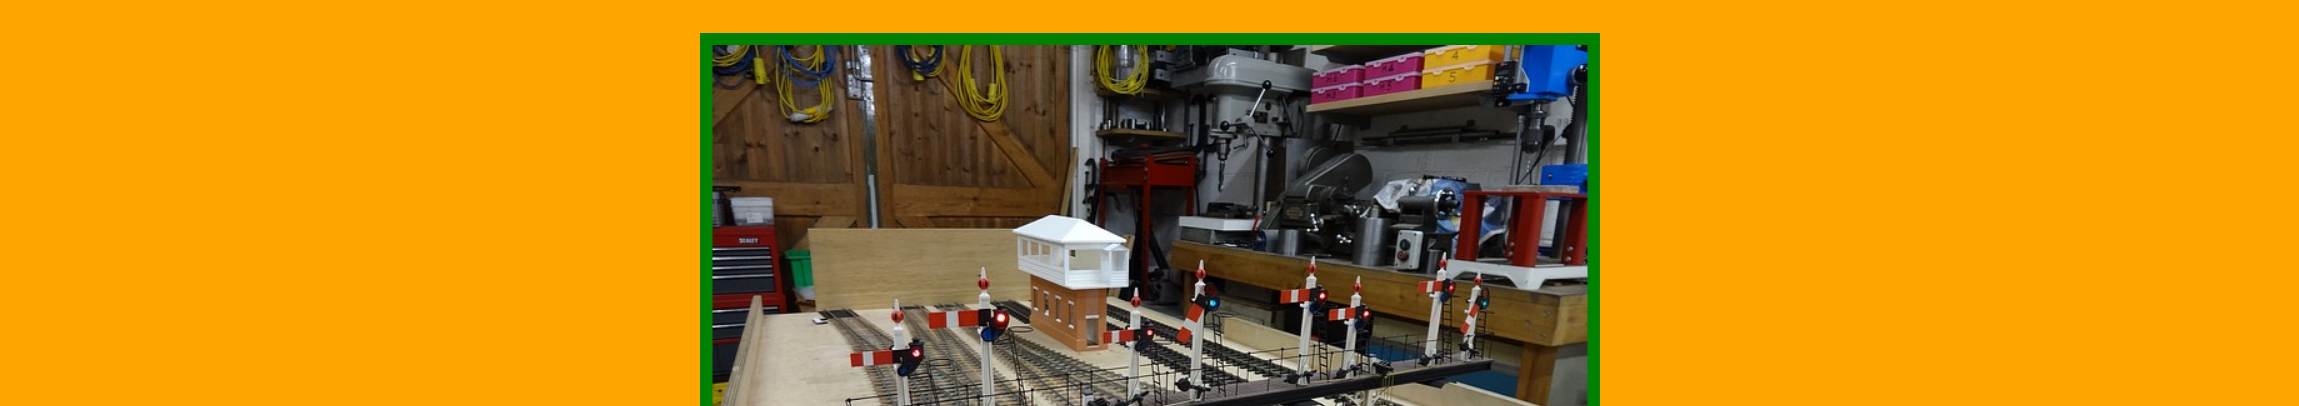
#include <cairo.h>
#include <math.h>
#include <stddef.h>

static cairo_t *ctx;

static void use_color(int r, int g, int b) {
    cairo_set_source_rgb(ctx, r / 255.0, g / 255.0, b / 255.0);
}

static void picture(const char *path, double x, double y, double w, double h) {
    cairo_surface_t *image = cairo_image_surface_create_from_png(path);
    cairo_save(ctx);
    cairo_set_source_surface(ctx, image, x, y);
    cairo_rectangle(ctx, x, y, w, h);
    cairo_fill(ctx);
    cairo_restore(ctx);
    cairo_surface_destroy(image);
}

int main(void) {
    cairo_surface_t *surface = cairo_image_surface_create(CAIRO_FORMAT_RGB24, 2299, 406);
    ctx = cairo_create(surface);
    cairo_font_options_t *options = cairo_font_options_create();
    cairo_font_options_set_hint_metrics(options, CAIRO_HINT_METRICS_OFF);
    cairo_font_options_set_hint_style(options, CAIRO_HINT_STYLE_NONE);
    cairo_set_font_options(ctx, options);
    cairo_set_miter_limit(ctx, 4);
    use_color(255, 165, 0);
    cairo_paint(ctx);
    cairo_rectangle(ctx, 706.5, 39.5, 887, 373);
    use_color(0, 128, 0);
    cairo_set_line_width(ctx, 13);
    cairo_stroke(ctx);
    picture("img1.png", 712, 45, 876, 361);
    cairo_surface_write_to_png(surface, "result.png");
    cairo_font_options_destroy(options);
    cairo_destroy(ctx);
    cairo_surface_destroy(surface);
    return 0;
}
